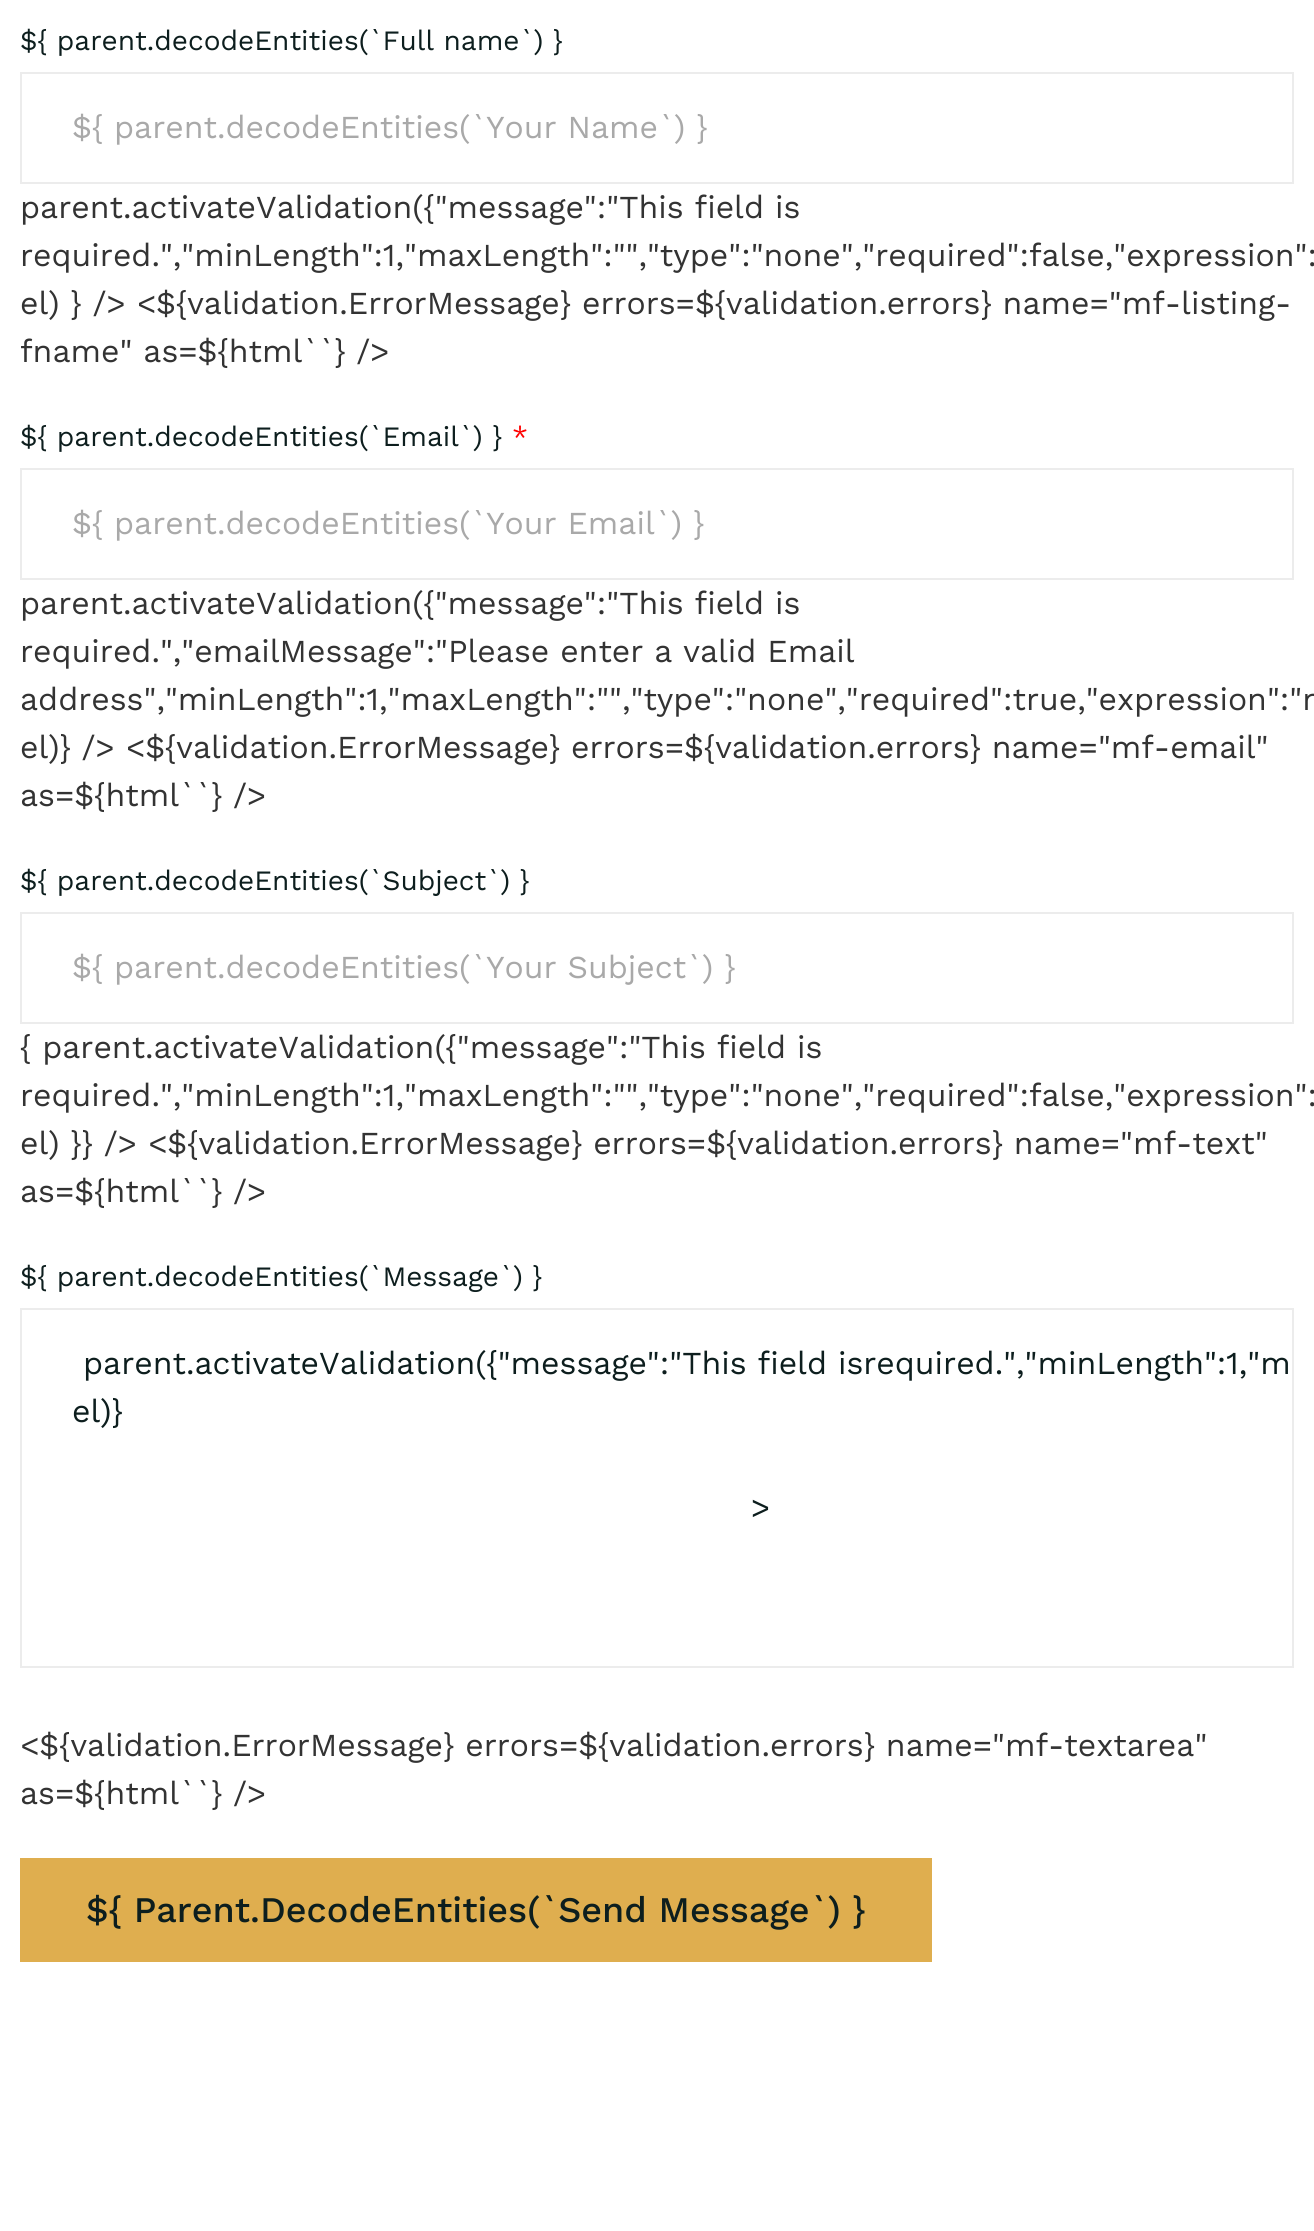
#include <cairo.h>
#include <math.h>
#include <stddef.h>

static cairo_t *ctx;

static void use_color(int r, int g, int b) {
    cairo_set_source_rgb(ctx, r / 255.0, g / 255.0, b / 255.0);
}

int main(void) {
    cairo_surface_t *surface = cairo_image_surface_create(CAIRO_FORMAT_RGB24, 1314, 2231);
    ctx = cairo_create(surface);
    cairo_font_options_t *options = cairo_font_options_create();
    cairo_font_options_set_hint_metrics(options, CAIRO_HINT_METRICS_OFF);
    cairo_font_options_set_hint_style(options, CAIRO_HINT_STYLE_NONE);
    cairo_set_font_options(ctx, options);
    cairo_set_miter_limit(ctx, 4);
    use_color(255, 255, 255);
    cairo_paint(ctx);
    cairo_select_font_face(ctx, "Work Sans", CAIRO_FONT_SLANT_NORMAL, CAIRO_FONT_WEIGHT_NORMAL);
    cairo_set_font_size(ctx, 28);
    use_color(13, 30, 30);
    cairo_move_to(ctx, 20, 50);
    cairo_show_text(ctx, "${ parent.decodeEntities(`Full name`) }");
    cairo_rectangle(ctx, 21, 73, 1272, 110);
    use_color(236, 236, 236);
    cairo_stroke(ctx);
    cairo_set_font_size(ctx, 32);
    use_color(169, 169, 169);
    cairo_move_to(ctx, 72, 138);
    cairo_show_text(ctx, "${ parent.decodeEntities(`Your Name`) }");
    use_color(51, 51, 51);
    cairo_move_to(ctx, 20, 218);
    cairo_show_text(ctx, "parent.activateValidation({\"message\":\"This field is");
    cairo_move_to(ctx, 20, 266);
    cairo_show_text(ctx, "required.\",\"minLength\":1,\"maxLength\":\"\",\"type\":\"none\",\"required\":false,\"expression\":");
    cairo_move_to(ctx, 20, 314);
    cairo_show_text(ctx, "el) } /> <${validation.ErrorMessage} errors=${validation.errors} name=\"mf-listing-");
    cairo_move_to(ctx, 20, 362);
    cairo_show_text(ctx, "fname\" as=${html``} />");
    cairo_set_font_size(ctx, 28);
    use_color(13, 30, 30);
    cairo_move_to(ctx, 20, 446);
    cairo_show_text(ctx, "${ parent.decodeEntities(`Email`) }");
    use_color(255, 0, 0);
    cairo_move_to(ctx, 512, 446);
    cairo_show_text(ctx, "*");
    cairo_rectangle(ctx, 21, 469, 1272, 110);
    use_color(236, 236, 236);
    cairo_stroke(ctx);
    cairo_set_font_size(ctx, 32);
    use_color(169, 169, 169);
    cairo_move_to(ctx, 72, 534);
    cairo_show_text(ctx, "${ parent.decodeEntities(`Your Email`) }");
    use_color(51, 51, 51);
    cairo_move_to(ctx, 20, 614);
    cairo_show_text(ctx, "parent.activateValidation({\"message\":\"This field is");
    cairo_move_to(ctx, 20, 662);
    cairo_show_text(ctx, "required.\",\"emailMessage\":\"Please enter a valid Email");
    cairo_move_to(ctx, 20, 710);
    cairo_show_text(ctx, "address\",\"minLength\":1,\"maxLength\":\"\",\"type\":\"none\",\"required\":true,\"expression\":\"n");
    cairo_move_to(ctx, 20, 758);
    cairo_show_text(ctx, "el)} /> <${validation.ErrorMessage} errors=${validation.errors} name=\"mf-email\"");
    cairo_move_to(ctx, 20, 806);
    cairo_show_text(ctx, "as=${html``} />");
    cairo_set_font_size(ctx, 28);
    use_color(13, 30, 30);
    cairo_move_to(ctx, 20, 890);
    cairo_show_text(ctx, "${ parent.decodeEntities(`Subject`) }");
    cairo_rectangle(ctx, 21, 913, 1272, 110);
    use_color(236, 236, 236);
    cairo_stroke(ctx);
    cairo_set_font_size(ctx, 32);
    use_color(169, 169, 169);
    cairo_move_to(ctx, 72, 978);
    cairo_show_text(ctx, "${ parent.decodeEntities(`Your Subject`) }");
    use_color(51, 51, 51);
    cairo_move_to(ctx, 20, 1058);
    cairo_show_text(ctx, "{ parent.activateValidation({\"message\":\"This field is");
    cairo_move_to(ctx, 20, 1106);
    cairo_show_text(ctx, "required.\",\"minLength\":1,\"maxLength\":\"\",\"type\":\"none\",\"required\":false,\"expression\":");
    cairo_move_to(ctx, 20, 1154);
    cairo_show_text(ctx, "el) }} /> <${validation.ErrorMessage} errors=${validation.errors} name=\"mf-text\"");
    cairo_move_to(ctx, 20, 1202);
    cairo_show_text(ctx, "as=${html``} />");
    cairo_set_font_size(ctx, 28);
    use_color(13, 30, 30);
    cairo_move_to(ctx, 20, 1286);
    cairo_show_text(ctx, "${ parent.decodeEntities(`Message`) }");
    cairo_rectangle(ctx, 21, 1309, 1272, 358);
    use_color(236, 236, 236);
    cairo_stroke(ctx);
    cairo_set_font_size(ctx, 32);
    use_color(13, 30, 30);
    cairo_move_to(ctx, 83, 1374);
    cairo_show_text(ctx, "parent.activateValidation({\"message\":\"This field isrequired.\",\"minLength\":1,\"m");
    cairo_move_to(ctx, 72, 1422);
    cairo_show_text(ctx, "el)}");
    cairo_move_to(ctx, 751, 1518);
    cairo_show_text(ctx, ">");
    use_color(51, 51, 51);
    cairo_move_to(ctx, 20, 1756);
    cairo_show_text(ctx, "<${validation.ErrorMessage} errors=${validation.errors} name=\"mf-textarea\"");
    cairo_move_to(ctx, 20, 1804);
    cairo_show_text(ctx, "as=${html``} />");
    use_color(223, 174, 79);
    cairo_rectangle(ctx, 20, 1858, 912, 104);
    cairo_fill(ctx);
    cairo_select_font_face(ctx, "Work Sans Medium", CAIRO_FONT_SLANT_NORMAL, CAIRO_FONT_WEIGHT_NORMAL);
    cairo_set_font_size(ctx, 36);
    use_color(13, 30, 30);
    cairo_move_to(ctx, 86, 1922);
    cairo_show_text(ctx, "${ Parent.DecodeEntities(`Send Message`) }");
    cairo_surface_write_to_png(surface, "result.png");
    cairo_font_options_destroy(options);
    cairo_destroy(ctx);
    cairo_surface_destroy(surface);
    return 0;
}
